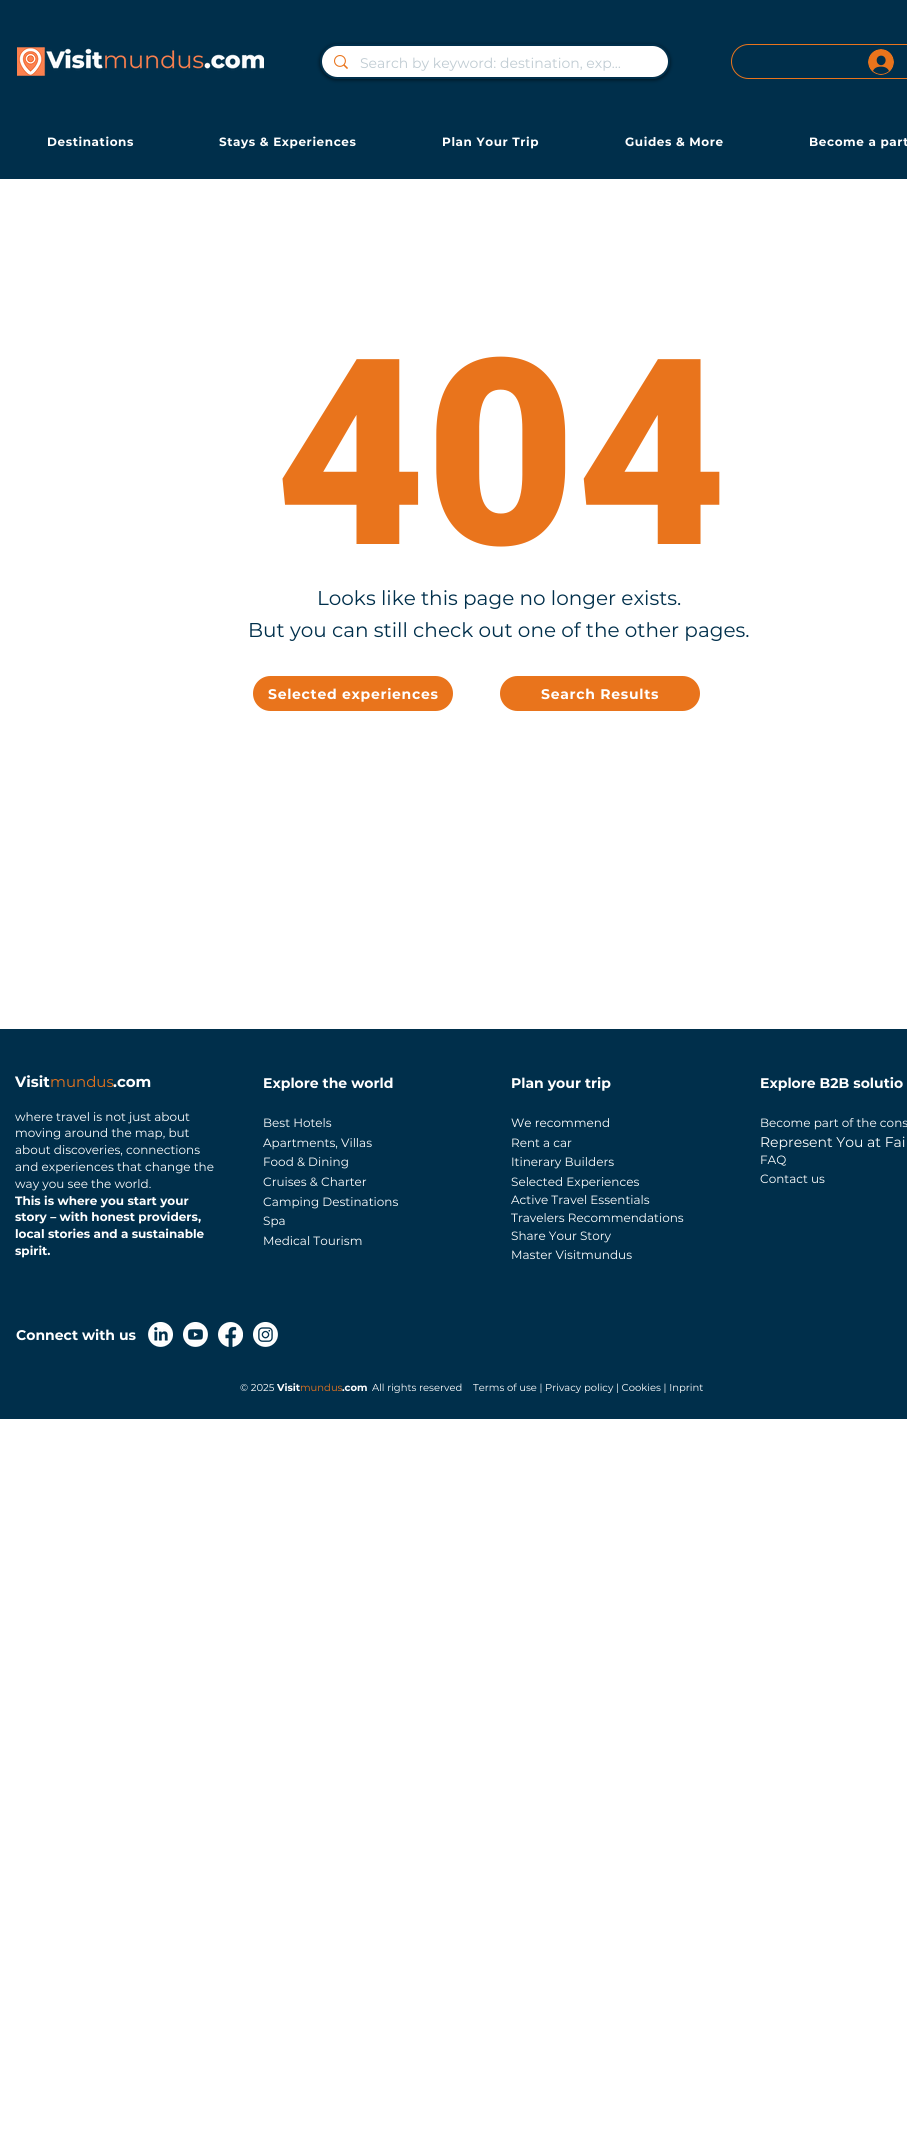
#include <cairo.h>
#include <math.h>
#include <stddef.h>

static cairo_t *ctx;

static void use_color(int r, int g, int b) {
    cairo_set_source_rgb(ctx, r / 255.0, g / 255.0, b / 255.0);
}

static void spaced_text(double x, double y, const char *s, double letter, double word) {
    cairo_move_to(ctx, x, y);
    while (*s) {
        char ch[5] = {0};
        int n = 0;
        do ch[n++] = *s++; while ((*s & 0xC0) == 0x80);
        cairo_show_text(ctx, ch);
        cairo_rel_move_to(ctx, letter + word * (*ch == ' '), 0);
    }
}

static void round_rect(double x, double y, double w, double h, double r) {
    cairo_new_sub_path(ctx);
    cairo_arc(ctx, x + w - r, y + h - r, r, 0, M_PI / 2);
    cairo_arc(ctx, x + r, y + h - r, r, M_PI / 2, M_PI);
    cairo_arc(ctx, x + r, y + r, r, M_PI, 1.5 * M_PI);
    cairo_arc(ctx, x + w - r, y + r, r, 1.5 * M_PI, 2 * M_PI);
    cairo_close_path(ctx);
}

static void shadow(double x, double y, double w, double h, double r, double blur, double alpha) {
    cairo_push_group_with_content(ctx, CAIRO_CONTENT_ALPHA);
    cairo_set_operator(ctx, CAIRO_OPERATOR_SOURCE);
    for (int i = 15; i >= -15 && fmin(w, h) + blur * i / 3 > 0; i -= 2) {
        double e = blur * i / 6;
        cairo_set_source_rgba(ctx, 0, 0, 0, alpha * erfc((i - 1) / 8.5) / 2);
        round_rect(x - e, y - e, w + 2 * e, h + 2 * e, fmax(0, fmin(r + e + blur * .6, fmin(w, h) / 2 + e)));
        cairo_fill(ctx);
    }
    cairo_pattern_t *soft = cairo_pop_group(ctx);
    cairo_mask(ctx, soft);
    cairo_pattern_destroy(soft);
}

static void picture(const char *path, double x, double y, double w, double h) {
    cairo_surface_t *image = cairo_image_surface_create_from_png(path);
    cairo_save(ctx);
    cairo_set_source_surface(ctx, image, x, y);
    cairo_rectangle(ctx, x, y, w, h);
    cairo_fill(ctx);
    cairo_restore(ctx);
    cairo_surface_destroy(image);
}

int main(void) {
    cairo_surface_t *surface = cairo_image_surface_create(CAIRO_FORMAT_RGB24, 907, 2135);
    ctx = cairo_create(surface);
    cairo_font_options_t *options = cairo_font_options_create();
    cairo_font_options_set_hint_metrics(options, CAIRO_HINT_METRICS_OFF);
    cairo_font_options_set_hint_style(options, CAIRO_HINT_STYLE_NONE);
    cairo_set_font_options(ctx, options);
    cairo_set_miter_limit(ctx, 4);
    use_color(255, 255, 255);
    cairo_paint(ctx);
    use_color(0, 47, 75);
    cairo_rectangle(ctx, 0, 0, 907, 179);
    cairo_fill(ctx);
    picture("img1.png", 17, 47, 247, 29);
    use_color(0, 0, 0);
    shadow(320, 45, 350, 35, 17.5, 2, 0.6);
    round_rect(321, 45, 348, 33, 16.5);
    use_color(0, 47, 75);
    cairo_stroke(ctx);
    use_color(255, 255, 255);
    round_rect(322, 46, 346, 31, 15.5);
    cairo_fill(ctx);
    picture("img2.png", 334, 55, 14, 14);
    cairo_select_font_face(ctx, "Montserrat", CAIRO_FONT_SLANT_NORMAL, CAIRO_FONT_WEIGHT_NORMAL);
    cairo_set_font_size(ctx, 14);
    use_color(191, 203, 210);
    cairo_move_to(ctx, 360, 68);
    cairo_show_text(ctx, "Search by keyword: destination, exp…");
    round_rect(731.5, 44.5, 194, 34, 17);
    use_color(233, 116, 28);
    cairo_set_line_width(ctx, 1);
    cairo_stroke(ctx);
    picture("img3.png", 868, 49, 26, 26);
    cairo_select_font_face(ctx, "Montserrat", CAIRO_FONT_SLANT_NORMAL, CAIRO_FONT_WEIGHT_BOLD);
    cairo_set_font_size(ctx, 12);
    use_color(255, 255, 255);
    spaced_text(47, 146, "Destinations", 0.6, 0);
    spaced_text(219, 146, "Stays & Experiences", 0.6, 0);
    spaced_text(442, 146, "Plan Your Trip", 0.6, 0);
    spaced_text(625, 146, "Guides & More", 0.6, 0);
    spaced_text(809, 146, "Become a part", 0.6, 0);
    cairo_select_font_face(ctx, "Roboto Black", CAIRO_FONT_SLANT_NORMAL, CAIRO_FONT_WEIGHT_NORMAL);
    cairo_set_font_size(ctx, 260);
    use_color(233, 116, 28);
    cairo_move_to(ctx, 275, 544);
    cairo_show_text(ctx, "404");
    cairo_select_font_face(ctx, "Montserrat", CAIRO_FONT_SLANT_NORMAL, CAIRO_FONT_WEIGHT_NORMAL);
    cairo_set_font_size(ctx, 20);
    use_color(0, 47, 75);
    cairo_move_to(ctx, 317, 605);
    cairo_show_text(ctx, "Looks like this page no longer exists.");
    cairo_move_to(ctx, 248, 637);
    cairo_show_text(ctx, "But you can still check out one of the other pages.");
    use_color(233, 116, 28);
    round_rect(253, 676, 200, 35, 17.5);
    cairo_fill(ctx);
    cairo_select_font_face(ctx, "Montserrat", CAIRO_FONT_SLANT_NORMAL, CAIRO_FONT_WEIGHT_BOLD);
    cairo_set_font_size(ctx, 14);
    use_color(255, 255, 255);
    spaced_text(268, 699, "Selected experiences", 0.7, 0);
    use_color(233, 116, 28);
    round_rect(500, 676, 200, 35, 17.5);
    cairo_fill(ctx);
    use_color(255, 255, 255);
    spaced_text(541, 699, "Search Results", 0.7, 0);
    use_color(0, 47, 75);
    cairo_rectangle(ctx, 0, 1029, 907, 390);
    cairo_fill(ctx);
    cairo_set_font_size(ctx, 15);
    use_color(255, 255, 255);
    cairo_move_to(ctx, 15, 1087);
    cairo_show_text(ctx, "Visit");
    cairo_select_font_face(ctx, "Montserrat", CAIRO_FONT_SLANT_NORMAL, CAIRO_FONT_WEIGHT_NORMAL);
    use_color(233, 116, 28);
    cairo_move_to(ctx, 50, 1087);
    cairo_show_text(ctx, "mundus");
    cairo_select_font_face(ctx, "Montserrat", CAIRO_FONT_SLANT_NORMAL, CAIRO_FONT_WEIGHT_BOLD);
    use_color(255, 255, 255);
    cairo_move_to(ctx, 113, 1087);
    cairo_show_text(ctx, ".com");
    cairo_select_font_face(ctx, "Montserrat", CAIRO_FONT_SLANT_NORMAL, CAIRO_FONT_WEIGHT_NORMAL);
    cairo_set_font_size(ctx, 12);
    cairo_move_to(ctx, 15, 1121);
    cairo_show_text(ctx, "where travel is not just about");
    cairo_move_to(ctx, 15, 1137);
    cairo_show_text(ctx, "moving around the map, but");
    cairo_move_to(ctx, 15, 1154);
    cairo_show_text(ctx, "about discoveries, connections");
    cairo_move_to(ctx, 15, 1171);
    cairo_show_text(ctx, "and experiences that change the");
    cairo_move_to(ctx, 15, 1188);
    cairo_show_text(ctx, "way you see the world.");
    cairo_select_font_face(ctx, "Montserrat", CAIRO_FONT_SLANT_NORMAL, CAIRO_FONT_WEIGHT_BOLD);
    cairo_move_to(ctx, 15, 1205);
    cairo_show_text(ctx, "This is where you start your");
    cairo_move_to(ctx, 15, 1221);
    cairo_show_text(ctx, "story – with honest providers,");
    cairo_move_to(ctx, 15, 1238);
    cairo_show_text(ctx, "local stories and a sustainable");
    cairo_move_to(ctx, 15, 1255);
    cairo_show_text(ctx, "spirit.");
    cairo_set_font_size(ctx, 14);
    cairo_move_to(ctx, 263, 1088);
    cairo_show_text(ctx, "Explore the world");
    cairo_select_font_face(ctx, "Montserrat", CAIRO_FONT_SLANT_NORMAL, CAIRO_FONT_WEIGHT_NORMAL);
    cairo_set_font_size(ctx, 12);
    cairo_move_to(ctx, 263, 1127);
    cairo_show_text(ctx, "Best Hotels");
    cairo_move_to(ctx, 263, 1147);
    cairo_show_text(ctx, "Apartments, Villas");
    cairo_move_to(ctx, 263, 1166);
    cairo_show_text(ctx, "Food & Dining");
    cairo_move_to(ctx, 263, 1186);
    cairo_show_text(ctx, "Cruises & Charter");
    cairo_move_to(ctx, 263, 1206);
    cairo_show_text(ctx, "Camping Destinations");
    cairo_move_to(ctx, 263, 1225);
    cairo_show_text(ctx, "Spa");
    cairo_move_to(ctx, 263, 1245);
    cairo_show_text(ctx, "Medical Tourism");
    cairo_select_font_face(ctx, "Montserrat", CAIRO_FONT_SLANT_NORMAL, CAIRO_FONT_WEIGHT_BOLD);
    cairo_set_font_size(ctx, 14);
    cairo_move_to(ctx, 511, 1088);
    cairo_show_text(ctx, "Plan your trip");
    cairo_select_font_face(ctx, "Montserrat", CAIRO_FONT_SLANT_NORMAL, CAIRO_FONT_WEIGHT_NORMAL);
    cairo_set_font_size(ctx, 12);
    cairo_move_to(ctx, 511, 1127);
    cairo_show_text(ctx, "We recommend");
    cairo_move_to(ctx, 511, 1147);
    cairo_show_text(ctx, "Rent a car");
    cairo_move_to(ctx, 511, 1166);
    cairo_show_text(ctx, "Itinerary Builders");
    cairo_move_to(ctx, 511, 1186);
    cairo_show_text(ctx, "Selected Experiences");
    cairo_move_to(ctx, 511, 1204);
    cairo_show_text(ctx, "Active Travel Essentials");
    cairo_move_to(ctx, 511, 1222);
    cairo_show_text(ctx, "Travelers Recommendations");
    cairo_move_to(ctx, 511, 1240);
    cairo_show_text(ctx, "Share Your Story");
    cairo_move_to(ctx, 511, 1259);
    cairo_show_text(ctx, "Master Visitmundus");
    cairo_select_font_face(ctx, "Montserrat", CAIRO_FONT_SLANT_NORMAL, CAIRO_FONT_WEIGHT_BOLD);
    cairo_set_font_size(ctx, 14);
    cairo_move_to(ctx, 760, 1088);
    cairo_show_text(ctx, "Explore B2B solutio");
    cairo_select_font_face(ctx, "Montserrat", CAIRO_FONT_SLANT_NORMAL, CAIRO_FONT_WEIGHT_NORMAL);
    cairo_set_font_size(ctx, 12);
    cairo_move_to(ctx, 760, 1127);
    cairo_show_text(ctx, "Become part of the cons");
    cairo_set_font_size(ctx, 14);
    cairo_move_to(ctx, 760, 1147);
    cairo_show_text(ctx, "Represent You at Fai");
    cairo_set_font_size(ctx, 12);
    cairo_move_to(ctx, 760, 1164);
    cairo_show_text(ctx, "FAQ");
    cairo_move_to(ctx, 760, 1183);
    cairo_show_text(ctx, "Contact us");
    cairo_select_font_face(ctx, "Montserrat", CAIRO_FONT_SLANT_NORMAL, CAIRO_FONT_WEIGHT_BOLD);
    cairo_set_font_size(ctx, 14);
    cairo_move_to(ctx, 16, 1340);
    cairo_show_text(ctx, "Connect with us");
    picture("img4.png", 148, 1322, 25, 25);
    picture("img5.png", 183, 1322, 25, 25);
    picture("img6.png", 218, 1322, 25, 25);
    picture("img7.png", 253, 1322, 25, 25);
    cairo_select_font_face(ctx, "Montserrat", CAIRO_FONT_SLANT_NORMAL, CAIRO_FONT_WEIGHT_NORMAL);
    cairo_set_font_size(ctx, 10);
    cairo_move_to(ctx, 240, 1391);
    cairo_show_text(ctx, "© 2025");
    cairo_select_font_face(ctx, "Montserrat", CAIRO_FONT_SLANT_NORMAL, CAIRO_FONT_WEIGHT_BOLD);
    cairo_move_to(ctx, 277, 1391);
    cairo_show_text(ctx, "Visit");
    cairo_select_font_face(ctx, "Montserrat", CAIRO_FONT_SLANT_NORMAL, CAIRO_FONT_WEIGHT_NORMAL);
    use_color(233, 116, 28);
    cairo_move_to(ctx, 300, 1391);
    cairo_show_text(ctx, "mundus");
    cairo_select_font_face(ctx, "Montserrat", CAIRO_FONT_SLANT_NORMAL, CAIRO_FONT_WEIGHT_BOLD);
    use_color(255, 255, 255);
    cairo_move_to(ctx, 342, 1391);
    cairo_show_text(ctx, ".com");
    cairo_select_font_face(ctx, "Montserrat", CAIRO_FONT_SLANT_NORMAL, CAIRO_FONT_WEIGHT_NORMAL);
    cairo_move_to(ctx, 372, 1391);
    cairo_show_text(ctx, "All rights reserved");
    cairo_move_to(ctx, 473, 1391);
    cairo_show_text(ctx, "Terms of use | Privacy policy | Cookies | Inprint");
    cairo_surface_write_to_png(surface, "result.png");
    cairo_font_options_destroy(options);
    cairo_destroy(ctx);
    cairo_surface_destroy(surface);
    return 0;
}
